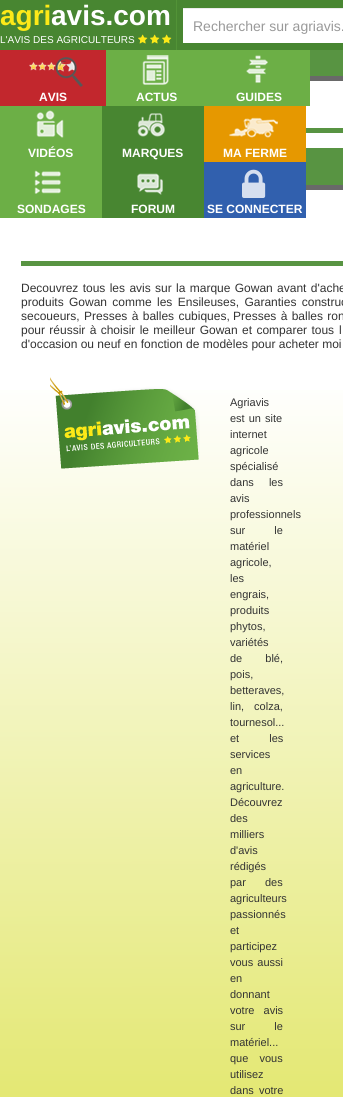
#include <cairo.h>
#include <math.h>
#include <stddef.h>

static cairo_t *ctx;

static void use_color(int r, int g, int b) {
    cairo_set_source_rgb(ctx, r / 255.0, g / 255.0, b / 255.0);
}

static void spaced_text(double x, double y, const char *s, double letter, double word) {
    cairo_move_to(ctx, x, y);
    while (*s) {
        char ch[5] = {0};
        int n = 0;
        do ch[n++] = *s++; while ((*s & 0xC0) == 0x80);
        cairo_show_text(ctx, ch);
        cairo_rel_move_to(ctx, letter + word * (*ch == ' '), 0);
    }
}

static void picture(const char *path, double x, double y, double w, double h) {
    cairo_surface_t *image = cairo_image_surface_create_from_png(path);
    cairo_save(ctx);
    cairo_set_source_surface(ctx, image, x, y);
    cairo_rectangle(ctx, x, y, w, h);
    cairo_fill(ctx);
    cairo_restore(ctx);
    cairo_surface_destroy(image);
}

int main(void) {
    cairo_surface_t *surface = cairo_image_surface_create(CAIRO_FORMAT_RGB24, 343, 1097);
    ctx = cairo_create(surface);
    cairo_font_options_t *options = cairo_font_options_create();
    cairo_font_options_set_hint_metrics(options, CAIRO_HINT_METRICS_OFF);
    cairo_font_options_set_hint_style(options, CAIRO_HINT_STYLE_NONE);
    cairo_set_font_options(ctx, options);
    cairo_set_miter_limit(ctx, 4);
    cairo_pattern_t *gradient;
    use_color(255, 255, 255);
    cairo_paint(ctx);
    use_color(72, 134, 49);
    cairo_rectangle(ctx, 0, 0, 343, 50);
    cairo_fill(ctx);
    cairo_select_font_face(ctx, "Liberation Sans", CAIRO_FONT_SLANT_NORMAL, CAIRO_FONT_WEIGHT_BOLD);
    cairo_set_font_size(ctx, 28);
    use_color(253, 233, 24);
    cairo_move_to(ctx, 0, 25);
    cairo_show_text(ctx, "agri");
    use_color(255, 255, 255);
    cairo_move_to(ctx, 51, 25);
    cairo_show_text(ctx, "avis.com");
    cairo_select_font_face(ctx, "Liberation Sans", CAIRO_FONT_SLANT_NORMAL, CAIRO_FONT_WEIGHT_NORMAL);
    cairo_set_font_size(ctx, 10);
    cairo_move_to(ctx, 0, 43);
    cairo_show_text(ctx, "L'AVIS DES AGRICULTEURS");
    picture("img1.png", 138, 34, 10, 10);
    picture("img1.png", 150, 34, 10, 10);
    picture("img1.png", 162, 34, 10, 10);
    use_color(82, 147, 55);
    cairo_rectangle(ctx, 176, 0, 1, 50);
    cairo_fill(ctx);
    use_color(255, 255, 255);
    cairo_rectangle(ctx, 183, 9, 160, 34);
    cairo_fill(ctx);
    use_color(236, 236, 236);
    cairo_rectangle(ctx, 183, 8, 160, 1);
    cairo_fill(ctx);
    cairo_set_font_size(ctx, 14);
    use_color(153, 153, 153);
    cairo_move_to(ctx, 193, 31);
    cairo_show_text(ctx, "Rechercher sur agriavis.");
    use_color(194, 39, 45);
    cairo_rectangle(ctx, 0, 50, 106, 56);
    cairo_fill(ctx);
    picture("img2.png", 29, 57, 54, 30);
    cairo_select_font_face(ctx, "Liberation Sans", CAIRO_FONT_SLANT_NORMAL, CAIRO_FONT_WEIGHT_BOLD);
    cairo_set_font_size(ctx, 12);
    use_color(255, 255, 255);
    cairo_move_to(ctx, 39, 101);
    cairo_show_text(ctx, "AVIS");
    use_color(108, 175, 70);
    cairo_rectangle(ctx, 106, 50, 204, 56);
    cairo_fill(ctx);
    picture("img3.png", 142, 55, 27, 30);
    use_color(255, 255, 255);
    cairo_move_to(ctx, 136, 101);
    cairo_show_text(ctx, "ACTUS");
    picture("img4.png", 246, 55, 22, 28);
    cairo_move_to(ctx, 236, 101);
    cairo_show_text(ctx, "GUIDES");
    use_color(108, 175, 70);
    cairo_rectangle(ctx, 0, 106, 102, 112);
    cairo_fill(ctx);
    picture("img5.png", 36, 110, 28, 28);
    use_color(255, 255, 255);
    cairo_move_to(ctx, 28, 157);
    cairo_show_text(ctx, "VIDÉOS");
    use_color(72, 134, 49);
    cairo_rectangle(ctx, 102, 106, 102, 112);
    cairo_fill(ctx);
    picture("img6.png", 137, 113, 28, 24);
    use_color(255, 255, 255);
    cairo_move_to(ctx, 122, 157);
    cairo_show_text(ctx, "MARQUES");
    use_color(230, 152, 0);
    cairo_rectangle(ctx, 204, 106, 102, 56);
    cairo_fill(ctx);
    picture("img7.png", 229, 117, 49, 21);
    use_color(255, 255, 255);
    cairo_move_to(ctx, 223, 157);
    cairo_show_text(ctx, "MA FERME");
    picture("img8.png", 34, 170, 27, 24);
    cairo_move_to(ctx, 17, 213);
    cairo_show_text(ctx, "SONDAGES");
    picture("img9.png", 137, 173, 26, 22);
    cairo_move_to(ctx, 131, 213);
    cairo_show_text(ctx, "FORUM");
    use_color(49, 96, 174);
    cairo_rectangle(ctx, 204, 162, 102, 56);
    cairo_fill(ctx);
    picture("img10.png", 242, 169, 24, 29);
    use_color(255, 255, 255);
    cairo_move_to(ctx, 207, 213);
    cairo_show_text(ctx, "SE CONNECTER");
    use_color(105, 105, 105);
    cairo_rectangle(ctx, 310, 76, 33, 5);
    cairo_fill(ctx);
    use_color(88, 148, 66);
    cairo_rectangle(ctx, 310, 50, 33, 26);
    cairo_fill(ctx);
    cairo_rectangle(ctx, 306, 128, 37, 5);
    cairo_fill(ctx);
    use_color(105, 105, 105);
    cairo_rectangle(ctx, 306, 185, 37, 5);
    cairo_fill(ctx);
    use_color(88, 148, 66);
    cairo_rectangle(ctx, 306, 148, 37, 37);
    cairo_fill(ctx);
    cairo_rectangle(ctx, 21, 261, 322, 5);
    cairo_fill(ctx);
    cairo_select_font_face(ctx, "Liberation Sans", CAIRO_FONT_SLANT_NORMAL, CAIRO_FONT_WEIGHT_NORMAL);
    use_color(51, 51, 51);
    spaced_text(21, 292, "Decouvrez tous les avis sur la marque Gowan avant d'ache", 0, 1);
    cairo_move_to(ctx, 21, 306);
    cairo_show_text(ctx, "produits");
    spaced_text(69, 306, "Gowan comme les Ensileuses, Garanties construc", 0, 2);
    spaced_text(21, 320, "secoueurs, Presses à balles cubiques,", 0, 1);
    spaced_text(233, 320, "Presses à balles ron", 0, 1);
    spaced_text(21, 334, "pour réussir à choisir le meilleur Gowan et comparer tous", 0, 1);
    spaced_text(339, 334, "l", 0, 1);
    cairo_move_to(ctx, 21, 348);
    cairo_show_text(ctx, "d'occasion ou neuf en fonction de modèles pour acheter moi");
    gradient = cairo_pattern_create_linear(171, 377, 172, 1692);
    cairo_pattern_add_color_stop_rgba(gradient, 0, 1, 1, 1, 1);
    cairo_pattern_add_color_stop_rgba(gradient, 1, 0.804, 0.835, 0, 1);
    cairo_set_source(ctx, gradient);
    cairo_pattern_destroy(gradient);
    cairo_rectangle(ctx, 0, 390, 343, 707);
    cairo_fill(ctx);
    picture("img11.png", 50, 377, 150, 92);
    cairo_set_font_size(ctx, 11);
    use_color(51, 51, 51);
    cairo_move_to(ctx, 230, 406);
    cairo_show_text(ctx, "Agriavis");
    spaced_text(230, 422, "est un site", 0, 1);
    cairo_move_to(ctx, 230, 438);
    cairo_show_text(ctx, "internet");
    cairo_move_to(ctx, 230, 454);
    cairo_show_text(ctx, "agricole");
    cairo_move_to(ctx, 230, 470);
    cairo_show_text(ctx, "spécialisé");
    spaced_text(230, 486, "dans les", 0, 12);
    cairo_move_to(ctx, 230, 502);
    cairo_show_text(ctx, "avis");
    cairo_move_to(ctx, 230, 518);
    cairo_show_text(ctx, "professionnels");
    spaced_text(230, 534, "sur le", 0, 26);
    cairo_move_to(ctx, 230, 550);
    cairo_show_text(ctx, "matériel");
    cairo_move_to(ctx, 230, 566);
    cairo_show_text(ctx, "agricole,");
    cairo_move_to(ctx, 230, 582);
    cairo_show_text(ctx, "les");
    cairo_move_to(ctx, 230, 598);
    cairo_show_text(ctx, "engrais,");
    cairo_move_to(ctx, 230, 614);
    cairo_show_text(ctx, "produits");
    cairo_move_to(ctx, 230, 630);
    cairo_show_text(ctx, "phytos,");
    cairo_move_to(ctx, 230, 646);
    cairo_show_text(ctx, "variétés");
    spaced_text(230, 662, "de blé,", 0, 20);
    cairo_move_to(ctx, 230, 678);
    cairo_show_text(ctx, "pois,");
    cairo_move_to(ctx, 230, 694);
    cairo_show_text(ctx, "betteraves,");
    spaced_text(230, 710, "lin, colza,", 0, 7);
    cairo_move_to(ctx, 230, 726);
    cairo_show_text(ctx, "tournesol...");
    spaced_text(230, 742, "et les", 0, 27);
    cairo_move_to(ctx, 230, 758);
    cairo_show_text(ctx, "services");
    cairo_move_to(ctx, 230, 774);
    cairo_show_text(ctx, "en");
    cairo_move_to(ctx, 230, 790);
    cairo_show_text(ctx, "agriculture.");
    cairo_move_to(ctx, 230, 806);
    cairo_show_text(ctx, "Découvrez");
    cairo_move_to(ctx, 230, 822);
    cairo_show_text(ctx, "des");
    cairo_move_to(ctx, 230, 838);
    cairo_show_text(ctx, "milliers");
    cairo_move_to(ctx, 230, 854);
    cairo_show_text(ctx, "d'avis");
    cairo_move_to(ctx, 230, 870);
    cairo_show_text(ctx, "rédigés");
    spaced_text(230, 886, "par des", 0, 16);
    cairo_move_to(ctx, 230, 902);
    cairo_show_text(ctx, "agriculteurs");
    cairo_move_to(ctx, 230, 918);
    cairo_show_text(ctx, "passionnés");
    cairo_move_to(ctx, 230, 934);
    cairo_show_text(ctx, "et");
    cairo_move_to(ctx, 230, 950);
    cairo_show_text(ctx, "participez");
    spaced_text(230, 966, "vous aussi", 0, 1);
    cairo_move_to(ctx, 230, 982);
    cairo_show_text(ctx, "en");
    cairo_move_to(ctx, 230, 998);
    cairo_show_text(ctx, "donnant");
    spaced_text(230, 1014, "votre avis", 0, 6);
    spaced_text(230, 1030, "sur le", 0, 26);
    cairo_move_to(ctx, 230, 1046);
    cairo_show_text(ctx, "matériel...");
    spaced_text(230, 1062, "que vous", 0, 8);
    cairo_move_to(ctx, 230, 1078);
    cairo_show_text(ctx, "utilisez");
    spaced_text(230, 1094, "dans votre", 0, 2);
    cairo_surface_write_to_png(surface, "result.png");
    cairo_font_options_destroy(options);
    cairo_destroy(ctx);
    cairo_surface_destroy(surface);
    return 0;
}
